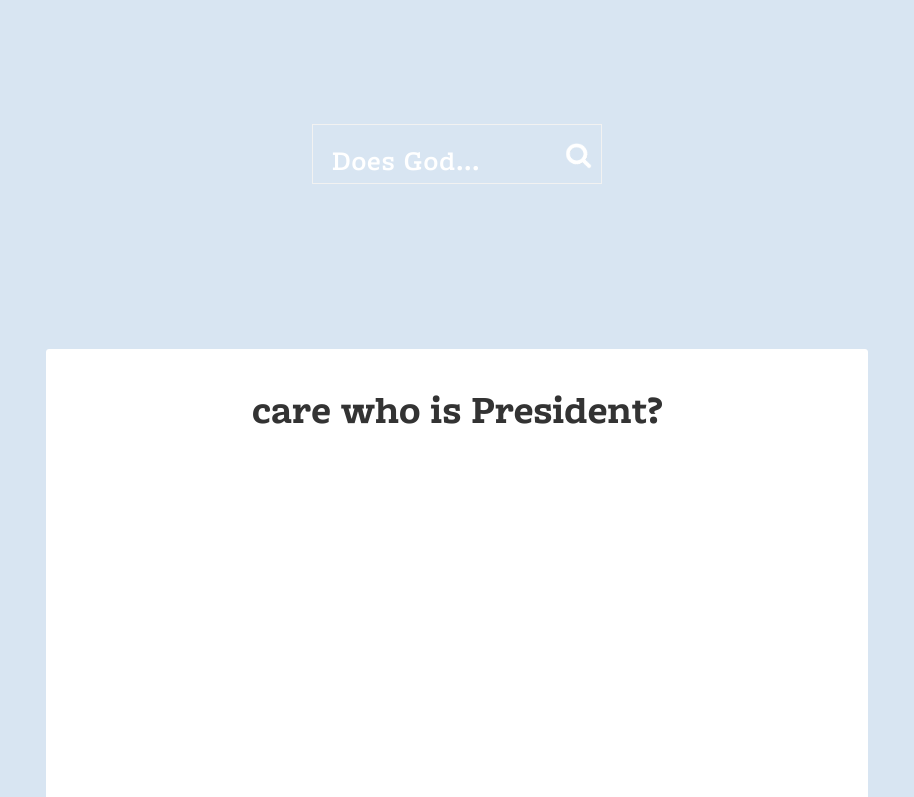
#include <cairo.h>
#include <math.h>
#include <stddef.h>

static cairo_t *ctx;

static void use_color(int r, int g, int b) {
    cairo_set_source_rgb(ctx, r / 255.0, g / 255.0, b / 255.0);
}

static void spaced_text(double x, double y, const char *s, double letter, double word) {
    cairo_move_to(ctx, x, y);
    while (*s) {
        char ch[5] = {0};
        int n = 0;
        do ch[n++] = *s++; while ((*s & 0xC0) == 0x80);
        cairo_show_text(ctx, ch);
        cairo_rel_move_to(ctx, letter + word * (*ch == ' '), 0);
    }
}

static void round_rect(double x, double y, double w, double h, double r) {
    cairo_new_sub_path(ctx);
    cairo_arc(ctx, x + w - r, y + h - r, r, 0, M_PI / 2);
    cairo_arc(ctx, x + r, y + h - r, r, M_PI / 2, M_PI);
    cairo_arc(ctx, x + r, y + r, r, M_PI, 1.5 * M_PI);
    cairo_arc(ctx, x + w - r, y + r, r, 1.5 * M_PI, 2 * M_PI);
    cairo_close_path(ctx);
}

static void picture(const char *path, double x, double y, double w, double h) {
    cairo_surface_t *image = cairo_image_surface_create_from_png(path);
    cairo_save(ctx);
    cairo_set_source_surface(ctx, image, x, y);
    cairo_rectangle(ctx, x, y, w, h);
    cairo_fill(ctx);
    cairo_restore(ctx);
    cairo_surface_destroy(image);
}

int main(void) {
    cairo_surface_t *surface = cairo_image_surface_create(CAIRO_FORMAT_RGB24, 914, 797);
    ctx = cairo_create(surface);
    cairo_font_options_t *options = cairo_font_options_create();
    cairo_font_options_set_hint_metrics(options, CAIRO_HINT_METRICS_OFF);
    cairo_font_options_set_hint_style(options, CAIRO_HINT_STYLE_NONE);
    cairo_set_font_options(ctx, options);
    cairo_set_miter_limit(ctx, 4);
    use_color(216, 229, 242);
    cairo_paint(ctx);
    cairo_rectangle(ctx, 312.5, 124.5, 289, 59);
    use_color(242, 242, 242);
    cairo_set_line_width(ctx, 1);
    cairo_stroke(ctx);
    cairo_select_font_face(ctx, "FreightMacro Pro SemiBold", CAIRO_FONT_SLANT_NORMAL, CAIRO_FONT_WEIGHT_NORMAL);
    cairo_set_font_size(ctx, 28);
    use_color(255, 255, 255);
    spaced_text(332, 170, "Does God...", 1, 0);
    picture("img1.png", 566, 143, 26, 26);
    round_rect(46, 349, 822, 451, 3);
    cairo_fill(ctx);
    cairo_select_font_face(ctx, "FreightMacro Pro", CAIRO_FONT_SLANT_NORMAL, CAIRO_FONT_WEIGHT_BOLD);
    cairo_set_font_size(ctx, 40);
    use_color(51, 51, 51);
    cairo_move_to(ctx, 252, 423);
    cairo_show_text(ctx, "care who is President?");
    cairo_surface_write_to_png(surface, "result.png");
    cairo_font_options_destroy(options);
    cairo_destroy(ctx);
    cairo_surface_destroy(surface);
    return 0;
}
